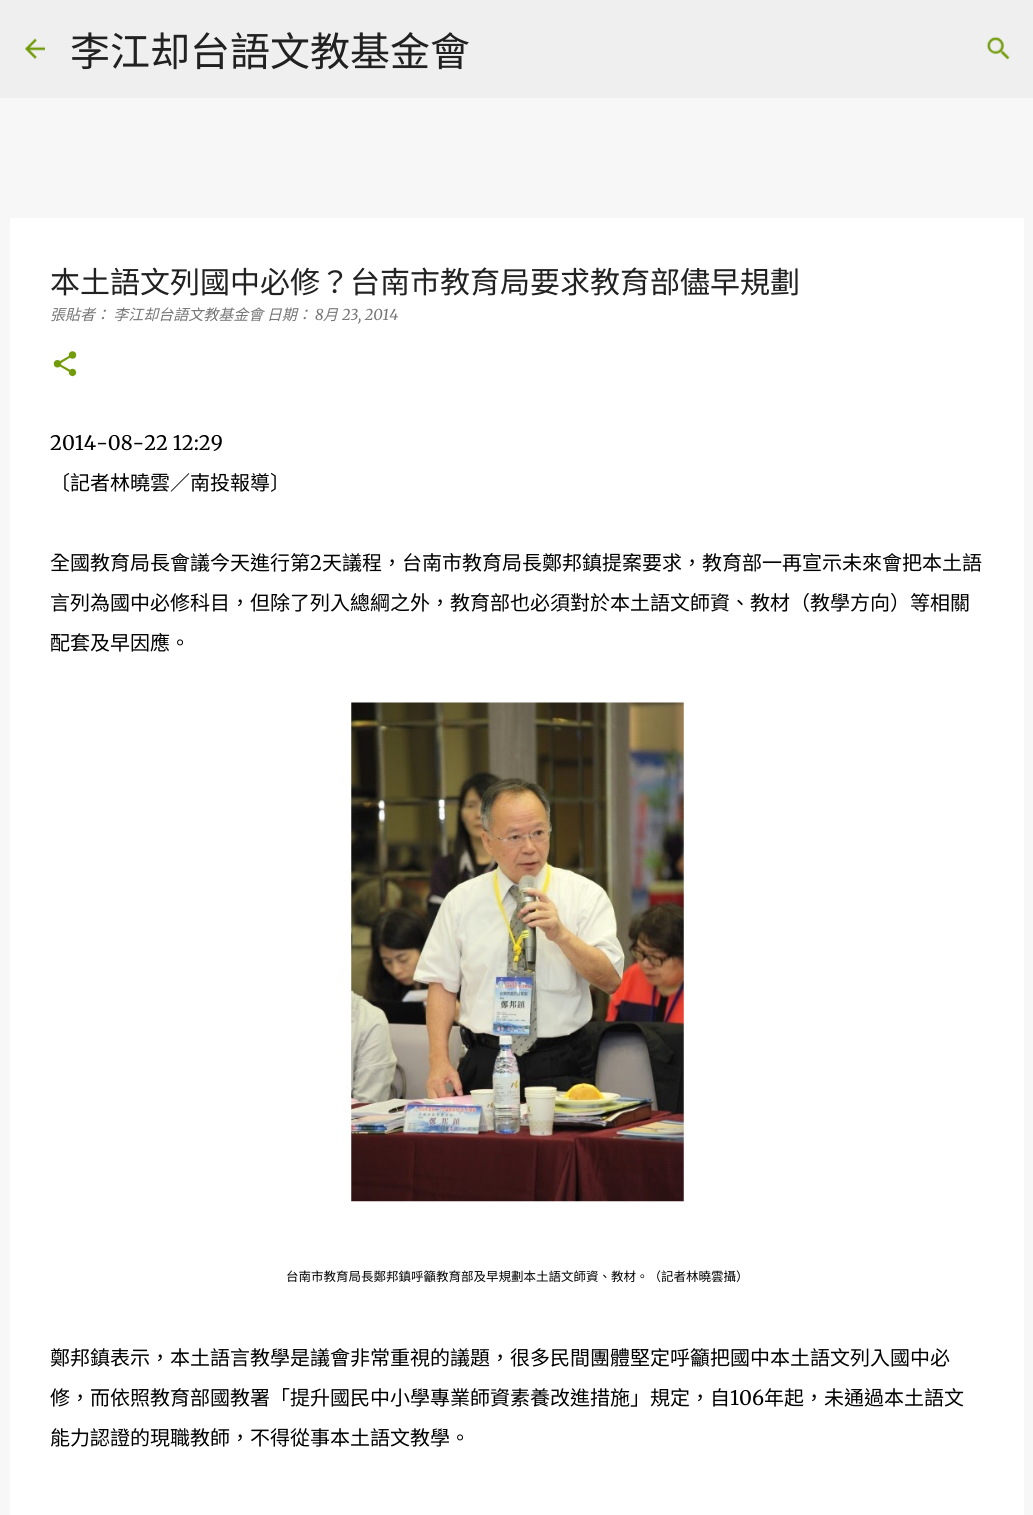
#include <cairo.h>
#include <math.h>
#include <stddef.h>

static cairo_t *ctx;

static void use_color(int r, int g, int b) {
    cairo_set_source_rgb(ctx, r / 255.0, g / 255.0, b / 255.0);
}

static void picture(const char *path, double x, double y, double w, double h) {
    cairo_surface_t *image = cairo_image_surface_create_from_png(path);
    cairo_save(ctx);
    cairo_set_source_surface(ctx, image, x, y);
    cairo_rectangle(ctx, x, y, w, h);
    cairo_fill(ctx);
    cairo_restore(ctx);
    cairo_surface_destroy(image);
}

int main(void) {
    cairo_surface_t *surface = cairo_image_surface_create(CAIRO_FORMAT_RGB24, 1033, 1515);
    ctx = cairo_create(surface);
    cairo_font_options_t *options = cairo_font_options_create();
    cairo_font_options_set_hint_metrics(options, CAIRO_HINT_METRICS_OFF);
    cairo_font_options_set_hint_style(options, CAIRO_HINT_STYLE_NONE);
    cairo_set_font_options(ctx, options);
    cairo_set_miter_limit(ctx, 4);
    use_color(247, 247, 247);
    cairo_paint(ctx);
    use_color(239, 239, 239);
    cairo_rectangle(ctx, 0, 0, 1033, 98);
    cairo_fill(ctx);
    picture("img1.png", 25, 38, 20, 21);
    cairo_select_font_face(ctx, "Noto Sans CJK TC", CAIRO_FONT_SLANT_NORMAL, CAIRO_FONT_WEIGHT_NORMAL);
    cairo_set_font_size(ctx, 40);
    use_color(33, 33, 33);
    cairo_move_to(ctx, 70, 66);
    cairo_show_text(ctx, "李江却台語文教基金會");
    picture("img2.png", 986, 36, 24, 24);
    use_color(255, 255, 255);
    cairo_rectangle(ctx, 10, 218, 1014, 1297);
    cairo_fill(ctx);
    cairo_set_font_size(ctx, 30);
    use_color(33, 33, 33);
    cairo_move_to(ctx, 50, 293);
    cairo_show_text(ctx, "本土語文列國中必修？台南市教育局要求教育部儘早規劃");
    cairo_select_font_face(ctx, "Noto Sans CJK TC", CAIRO_FONT_SLANT_ITALIC, CAIRO_FONT_WEIGHT_NORMAL);
    cairo_set_font_size(ctx, 15);
    use_color(117, 117, 117);
    cairo_move_to(ctx, 50, 320);
    cairo_show_text(ctx, "張貼者： 李江却台語文教基金會 日期：");
    cairo_select_font_face(ctx, "Merriweather", CAIRO_FONT_SLANT_ITALIC, CAIRO_FONT_WEIGHT_NORMAL);
    cairo_move_to(ctx, 315, 320);
    cairo_show_text(ctx, "8");
    cairo_select_font_face(ctx, "Noto Sans CJK TC", CAIRO_FONT_SLANT_ITALIC, CAIRO_FONT_WEIGHT_NORMAL);
    cairo_move_to(ctx, 323, 320);
    cairo_show_text(ctx, "月");
    cairo_select_font_face(ctx, "Merriweather", CAIRO_FONT_SLANT_ITALIC, CAIRO_FONT_WEIGHT_NORMAL);
    cairo_move_to(ctx, 342, 320);
    cairo_show_text(ctx, "23, 2014");
    picture("img3.png", 53, 351, 24, 26);
    cairo_select_font_face(ctx, "Merriweather Light", CAIRO_FONT_SLANT_NORMAL, CAIRO_FONT_WEIGHT_NORMAL);
    cairo_set_font_size(ctx, 20);
    use_color(0, 0, 0);
    cairo_move_to(ctx, 50, 450);
    cairo_show_text(ctx, "2014-08-22 12:29");
    cairo_select_font_face(ctx, "Noto Sans CJK TC", CAIRO_FONT_SLANT_NORMAL, CAIRO_FONT_WEIGHT_NORMAL);
    cairo_move_to(ctx, 50, 490);
    cairo_show_text(ctx, "〔記者林曉雲／南投報導〕");
    cairo_move_to(ctx, 50, 570);
    cairo_show_text(ctx, "全國教育局長會議今天進行第");
    cairo_select_font_face(ctx, "Merriweather Light", CAIRO_FONT_SLANT_NORMAL, CAIRO_FONT_WEIGHT_NORMAL);
    cairo_move_to(ctx, 310, 570);
    cairo_show_text(ctx, "2");
    cairo_select_font_face(ctx, "Noto Sans CJK TC", CAIRO_FONT_SLANT_NORMAL, CAIRO_FONT_WEIGHT_NORMAL);
    cairo_move_to(ctx, 322, 570);
    cairo_show_text(ctx, "天議程，台南市教育局長鄭邦鎮提案要求，教育部一再宣示未來會把本土語");
    cairo_move_to(ctx, 50, 610);
    cairo_show_text(ctx, "言列為國中必修科目，但除了列入總綱之外，教育部也必須對於本土語文師資、教材（教學方向）等相關");
    cairo_move_to(ctx, 50, 650);
    cairo_show_text(ctx, "配套及早因應。");
    picture("img4.png", 351, 702, 333, 500);
    cairo_set_font_size(ctx, 12.5);
    cairo_move_to(ctx, 286, 1281);
    cairo_show_text(ctx, "台南市教育局長鄭邦鎮呼籲教育部及早規劃本土語文師資、教材。（記者林曉雲攝）");
    cairo_set_font_size(ctx, 20);
    cairo_move_to(ctx, 50, 1365);
    cairo_show_text(ctx, "鄭邦鎮表示，本土語言教學是議會非常重視的議題，很多民間團體堅定呼籲把國中本土語文列入國中必");
    cairo_move_to(ctx, 50, 1405);
    cairo_show_text(ctx, "修，而依照教育部國教署「提升國民中小學專業師資素養改進措施」規定，自");
    cairo_select_font_face(ctx, "Merriweather Light", CAIRO_FONT_SLANT_NORMAL, CAIRO_FONT_WEIGHT_NORMAL);
    cairo_move_to(ctx, 730, 1405);
    cairo_show_text(ctx, "106");
    cairo_select_font_face(ctx, "Noto Sans CJK TC", CAIRO_FONT_SLANT_NORMAL, CAIRO_FONT_WEIGHT_NORMAL);
    cairo_move_to(ctx, 764, 1405);
    cairo_show_text(ctx, "年起，未通過本土語文");
    cairo_move_to(ctx, 50, 1445);
    cairo_show_text(ctx, "能力認證的現職教師，不得從事本土語文教學。");
    cairo_surface_write_to_png(surface, "result.png");
    cairo_font_options_destroy(options);
    cairo_destroy(ctx);
    cairo_surface_destroy(surface);
    return 0;
}
